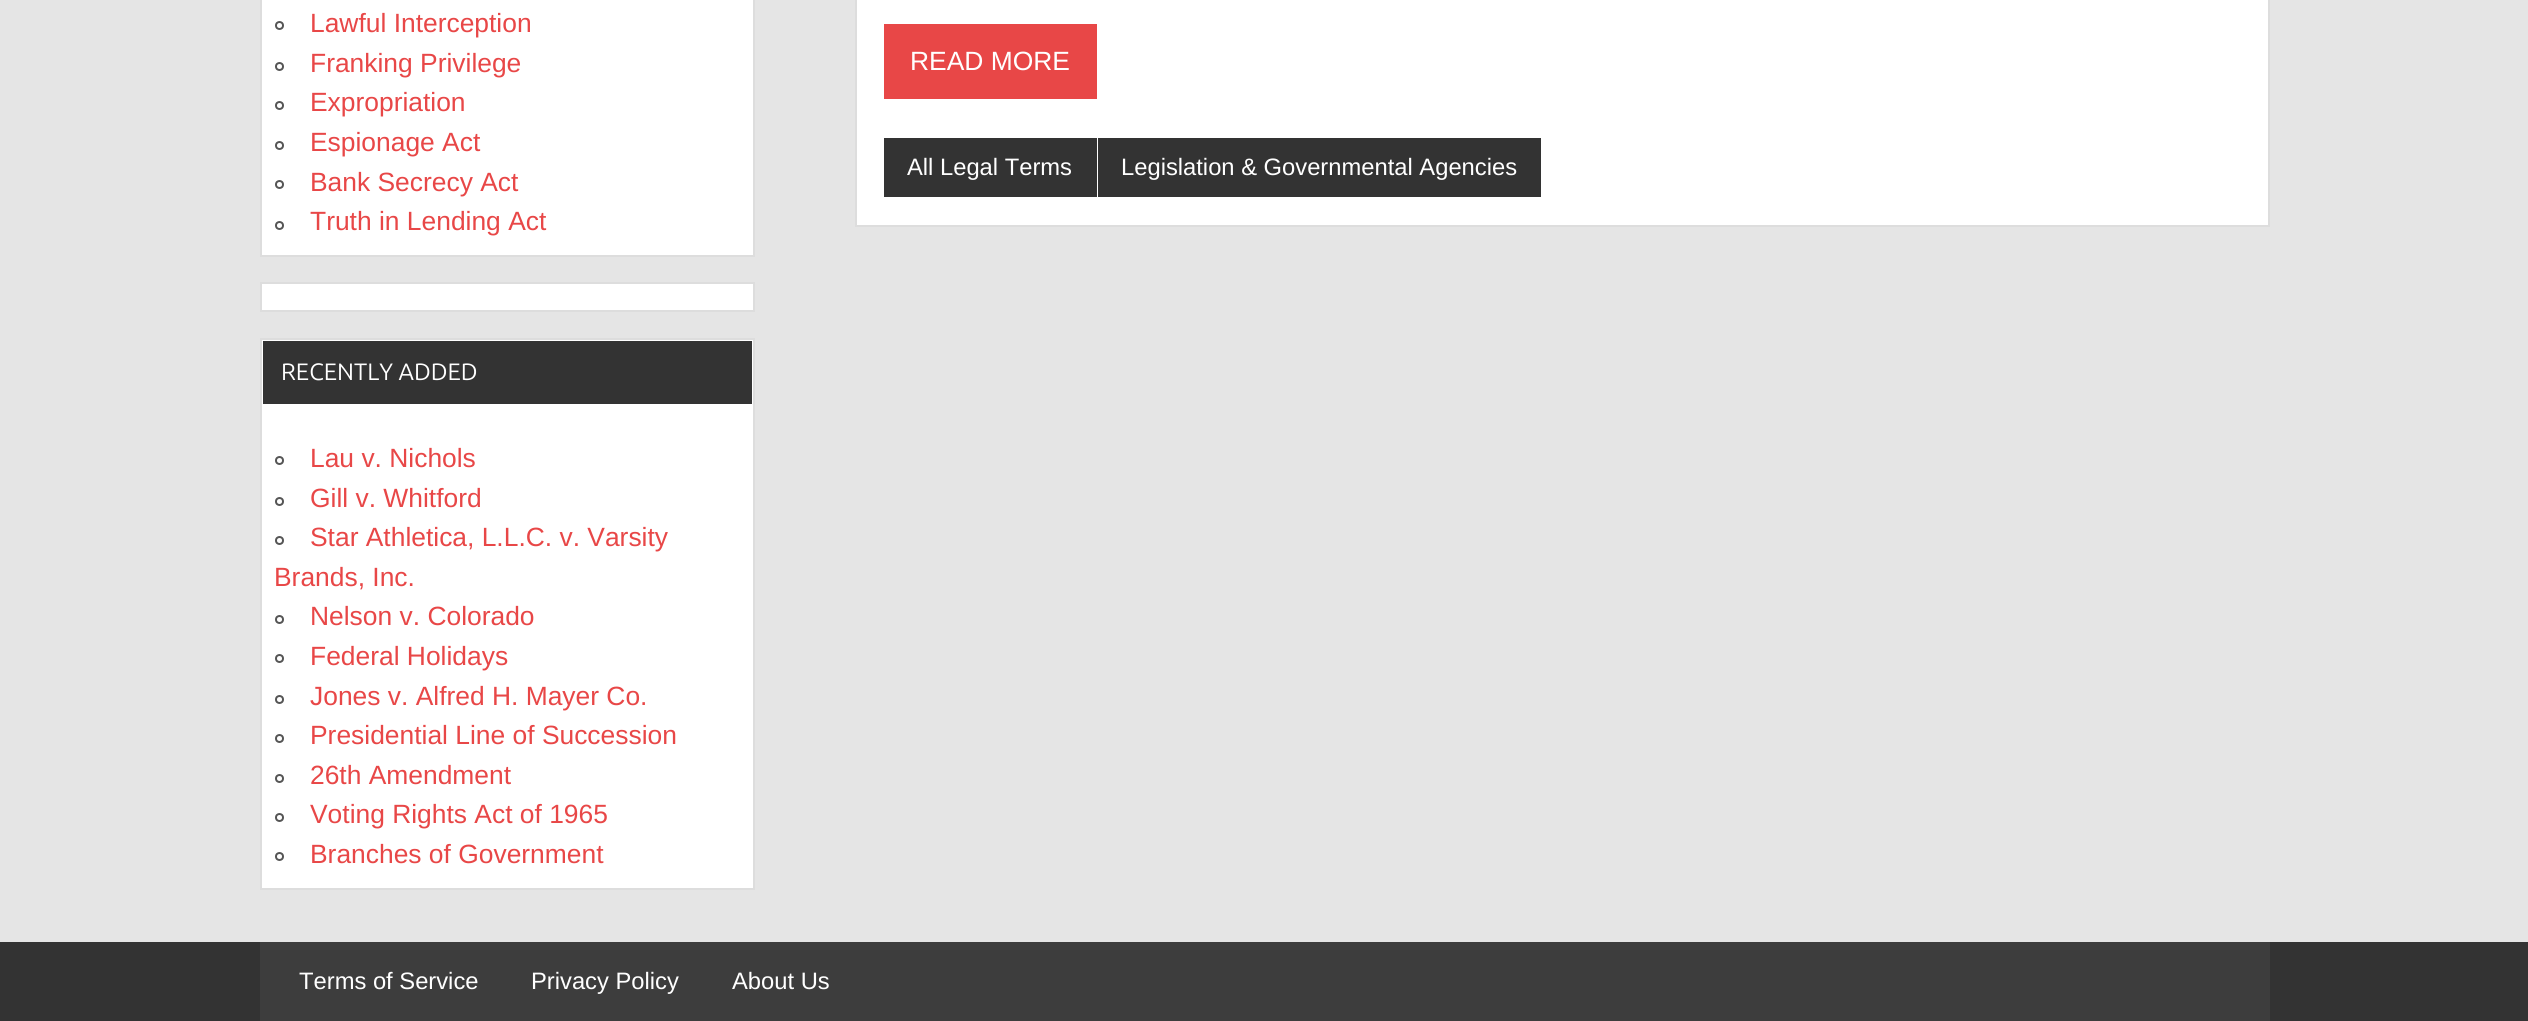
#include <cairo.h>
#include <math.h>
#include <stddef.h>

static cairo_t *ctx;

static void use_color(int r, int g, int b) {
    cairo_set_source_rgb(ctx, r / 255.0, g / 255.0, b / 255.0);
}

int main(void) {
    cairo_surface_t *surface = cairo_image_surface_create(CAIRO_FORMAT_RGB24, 2528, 1021);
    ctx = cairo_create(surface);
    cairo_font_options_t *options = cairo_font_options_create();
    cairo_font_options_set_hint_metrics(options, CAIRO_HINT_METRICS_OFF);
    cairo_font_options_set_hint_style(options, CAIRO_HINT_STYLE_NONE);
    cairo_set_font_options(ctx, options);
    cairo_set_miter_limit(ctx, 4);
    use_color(229, 229, 229);
    cairo_paint(ctx);
    use_color(255, 255, 255);
    cairo_rectangle(ctx, 261, -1, 493, 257);
    cairo_fill_preserve(ctx);
    use_color(221, 221, 221);
    cairo_stroke(ctx);
    cairo_arc(ctx, 279.5, 25.5, 3.5, 0, 2 * M_PI);
    use_color(85, 85, 85);
    cairo_stroke(ctx);
    cairo_select_font_face(ctx, "Liberation Sans", CAIRO_FONT_SLANT_NORMAL, CAIRO_FONT_WEIGHT_NORMAL);
    cairo_set_font_size(ctx, 26.4);
    use_color(232, 71, 71);
    cairo_move_to(ctx, 310, 32);
    cairo_show_text(ctx, "Lawful Interception");
    cairo_new_path(ctx);
    cairo_arc(ctx, 279.5, 66.5, 3.5, 0, 2 * M_PI);
    use_color(85, 85, 85);
    cairo_stroke(ctx);
    use_color(232, 71, 71);
    cairo_move_to(ctx, 310, 72);
    cairo_show_text(ctx, "Franking Privilege");
    cairo_new_path(ctx);
    cairo_arc(ctx, 279.5, 105.5, 3.5, 0, 2 * M_PI);
    use_color(85, 85, 85);
    cairo_stroke(ctx);
    use_color(232, 71, 71);
    cairo_move_to(ctx, 310, 111);
    cairo_show_text(ctx, "Expropriation");
    cairo_new_path(ctx);
    cairo_arc(ctx, 279.5, 145.5, 3.5, 0, 2 * M_PI);
    use_color(85, 85, 85);
    cairo_stroke(ctx);
    use_color(232, 71, 71);
    cairo_move_to(ctx, 310, 151);
    cairo_show_text(ctx, "Espionage Act");
    cairo_new_path(ctx);
    cairo_arc(ctx, 279.5, 184.5, 3.5, 0, 2 * M_PI);
    use_color(85, 85, 85);
    cairo_stroke(ctx);
    use_color(232, 71, 71);
    cairo_move_to(ctx, 310, 191);
    cairo_show_text(ctx, "Bank Secrecy Act");
    cairo_new_path(ctx);
    cairo_arc(ctx, 279.5, 225.5, 3.5, 0, 2 * M_PI);
    use_color(85, 85, 85);
    cairo_stroke(ctx);
    use_color(232, 71, 71);
    cairo_move_to(ctx, 310, 230);
    cairo_show_text(ctx, "Truth in Lending Act");
    use_color(255, 255, 255);
    cairo_rectangle(ctx, 261, 283, 493, 28);
    cairo_fill_preserve(ctx);
    use_color(221, 221, 221);
    cairo_stroke(ctx);
    use_color(255, 255, 255);
    cairo_rectangle(ctx, 261, 339, 493, 550);
    cairo_fill_preserve(ctx);
    use_color(221, 221, 221);
    cairo_stroke(ctx);
    use_color(51, 51, 51);
    cairo_rectangle(ctx, 263, 341, 489, 63);
    cairo_fill(ctx);
    cairo_select_font_face(ctx, "Ubuntu", CAIRO_FONT_SLANT_NORMAL, CAIRO_FONT_WEIGHT_NORMAL);
    cairo_set_font_size(ctx, 23.75);
    use_color(255, 255, 255);
    cairo_move_to(ctx, 281, 380);
    cairo_show_text(ctx, "RECENTLY ADDED");
    cairo_new_path(ctx);
    cairo_arc(ctx, 279.5, 460.5, 3.5, 0, 2 * M_PI);
    use_color(85, 85, 85);
    cairo_stroke(ctx);
    cairo_select_font_face(ctx, "Liberation Sans", CAIRO_FONT_SLANT_NORMAL, CAIRO_FONT_WEIGHT_NORMAL);
    cairo_set_font_size(ctx, 26.4);
    use_color(232, 71, 71);
    cairo_move_to(ctx, 310, 467);
    cairo_show_text(ctx, "Lau v. Nichols");
    cairo_new_path(ctx);
    cairo_arc(ctx, 279.5, 501.5, 3.5, 0, 2 * M_PI);
    use_color(85, 85, 85);
    cairo_stroke(ctx);
    use_color(232, 71, 71);
    cairo_move_to(ctx, 310, 507);
    cairo_show_text(ctx, "Gill v. Whitford");
    cairo_new_path(ctx);
    cairo_arc(ctx, 279.5, 540.5, 3.5, 0, 2 * M_PI);
    use_color(85, 85, 85);
    cairo_stroke(ctx);
    use_color(232, 71, 71);
    cairo_move_to(ctx, 310, 546);
    cairo_show_text(ctx, "Star Athletica, L.L.C. v. Varsity");
    cairo_move_to(ctx, 274, 586);
    cairo_show_text(ctx, "Brands, Inc.");
    cairo_new_path(ctx);
    cairo_arc(ctx, 279.5, 619.5, 3.5, 0, 2 * M_PI);
    use_color(85, 85, 85);
    cairo_stroke(ctx);
    use_color(232, 71, 71);
    cairo_move_to(ctx, 310, 625);
    cairo_show_text(ctx, "Nelson v. Colorado");
    cairo_new_path(ctx);
    cairo_arc(ctx, 279.5, 658.5, 3.5, 0, 2 * M_PI);
    use_color(85, 85, 85);
    cairo_stroke(ctx);
    use_color(232, 71, 71);
    cairo_move_to(ctx, 310, 665);
    cairo_show_text(ctx, "Federal Holidays");
    cairo_new_path(ctx);
    cairo_arc(ctx, 279.5, 699.5, 3.5, 0, 2 * M_PI);
    use_color(85, 85, 85);
    cairo_stroke(ctx);
    use_color(232, 71, 71);
    cairo_move_to(ctx, 310, 705);
    cairo_show_text(ctx, "Jones v. Alfred H. Mayer Co.");
    cairo_new_path(ctx);
    cairo_arc(ctx, 279.5, 738.5, 3.5, 0, 2 * M_PI);
    use_color(85, 85, 85);
    cairo_stroke(ctx);
    use_color(232, 71, 71);
    cairo_move_to(ctx, 310, 744);
    cairo_show_text(ctx, "Presidential Line of Succession");
    cairo_new_path(ctx);
    cairo_arc(ctx, 279.5, 778.5, 3.5, 0, 2 * M_PI);
    use_color(85, 85, 85);
    cairo_stroke(ctx);
    use_color(232, 71, 71);
    cairo_move_to(ctx, 310, 784);
    cairo_show_text(ctx, "26th Amendment");
    cairo_new_path(ctx);
    cairo_arc(ctx, 279.5, 817.5, 3.5, 0, 2 * M_PI);
    use_color(85, 85, 85);
    cairo_stroke(ctx);
    use_color(232, 71, 71);
    cairo_move_to(ctx, 310, 823);
    cairo_show_text(ctx, "Voting Rights Act of 1965");
    cairo_new_path(ctx);
    cairo_arc(ctx, 279.5, 856.5, 3.5, 0, 2 * M_PI);
    use_color(85, 85, 85);
    cairo_stroke(ctx);
    use_color(232, 71, 71);
    cairo_move_to(ctx, 310, 863);
    cairo_show_text(ctx, "Branches of Government");
    use_color(255, 255, 255);
    cairo_rectangle(ctx, 856, -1, 1413, 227);
    cairo_fill_preserve(ctx);
    use_color(221, 221, 221);
    cairo_stroke(ctx);
    use_color(232, 71, 71);
    cairo_rectangle(ctx, 884, 24, 213, 75);
    cairo_fill(ctx);
    use_color(255, 255, 255);
    cairo_move_to(ctx, 910, 70);
    cairo_show_text(ctx, "READ MORE");
    use_color(51, 51, 51);
    cairo_rectangle(ctx, 884, 138, 213, 59);
    cairo_fill(ctx);
    cairo_set_font_size(ctx, 23.75);
    use_color(255, 255, 255);
    cairo_move_to(ctx, 907, 175);
    cairo_show_text(ctx, "All Legal Terms");
    use_color(51, 51, 51);
    cairo_rectangle(ctx, 1098, 138, 443, 59);
    cairo_fill(ctx);
    use_color(255, 255, 255);
    cairo_move_to(ctx, 1121, 175);
    cairo_show_text(ctx, "Legislation & Governmental Agencies");
    use_color(51, 51, 51);
    cairo_rectangle(ctx, 0, 942, 2528, 79);
    cairo_fill(ctx);
    use_color(61, 61, 61);
    cairo_rectangle(ctx, 260, 942, 2010, 79);
    cairo_fill(ctx);
    use_color(255, 255, 255);
    cairo_move_to(ctx, 299, 989);
    cairo_show_text(ctx, "Terms of Service");
    cairo_move_to(ctx, 531, 989);
    cairo_show_text(ctx, "Privacy Policy");
    cairo_move_to(ctx, 732, 989);
    cairo_show_text(ctx, "About Us");
    cairo_surface_write_to_png(surface, "result.png");
    cairo_font_options_destroy(options);
    cairo_destroy(ctx);
    cairo_surface_destroy(surface);
    return 0;
}
